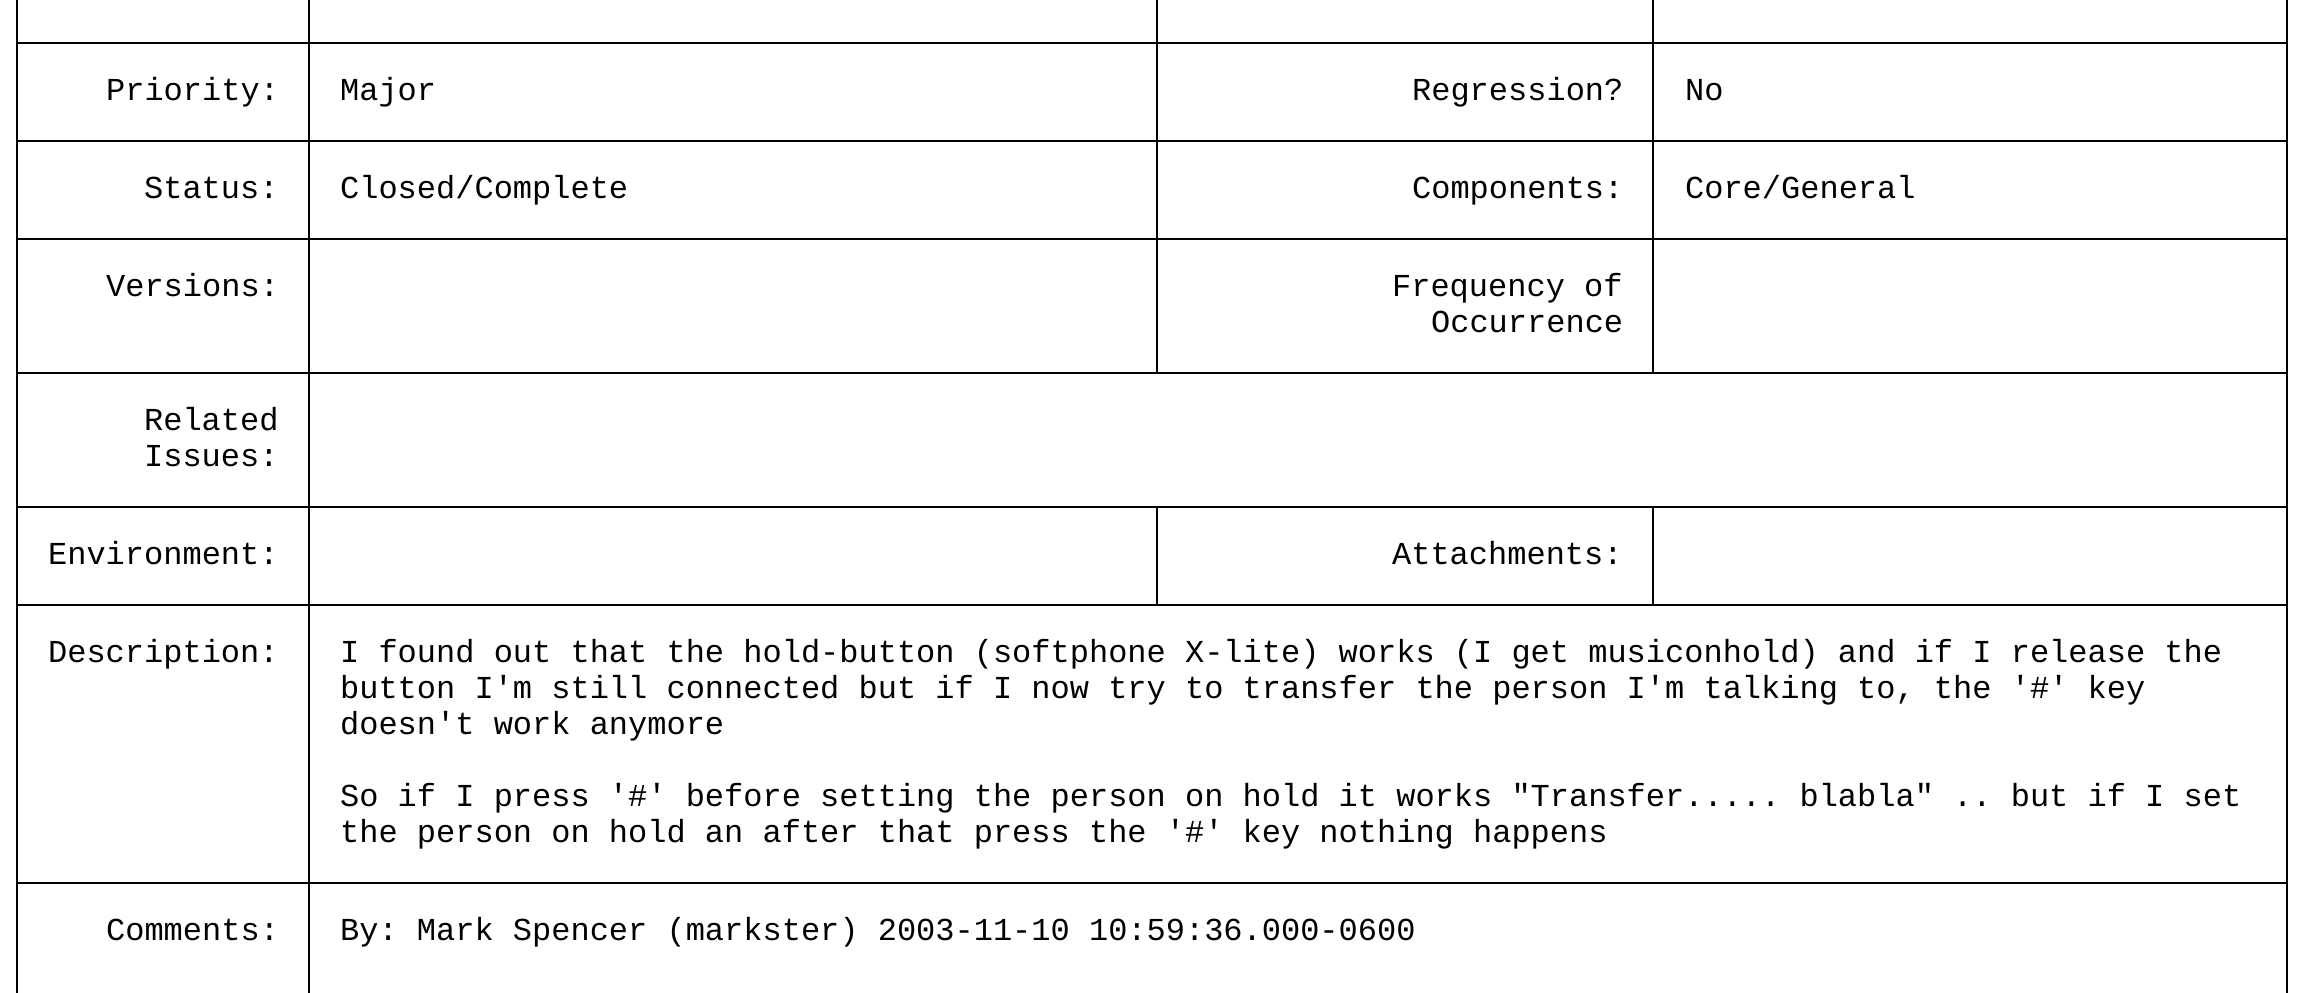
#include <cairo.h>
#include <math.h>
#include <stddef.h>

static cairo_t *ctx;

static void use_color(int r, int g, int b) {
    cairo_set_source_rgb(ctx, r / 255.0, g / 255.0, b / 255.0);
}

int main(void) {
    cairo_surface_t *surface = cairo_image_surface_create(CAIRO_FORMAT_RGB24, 2304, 993);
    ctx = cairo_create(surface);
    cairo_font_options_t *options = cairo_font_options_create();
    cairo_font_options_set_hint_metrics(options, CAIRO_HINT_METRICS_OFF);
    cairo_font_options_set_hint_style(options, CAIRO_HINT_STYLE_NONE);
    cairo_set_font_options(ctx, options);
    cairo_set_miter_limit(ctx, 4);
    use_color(255, 255, 255);
    cairo_paint(ctx);
    use_color(0, 0, 0);
    cairo_rectangle(ctx, 1652, 42, 636, 2);
    cairo_fill(ctx);
    cairo_rectangle(ctx, 1652, 140, 636, 2);
    cairo_fill(ctx);
    cairo_rectangle(ctx, 1652, 238, 636, 2);
    cairo_fill(ctx);
    cairo_rectangle(ctx, 308, 372, 1980, 2);
    cairo_fill(ctx);
    cairo_rectangle(ctx, 1652, 238, 2, 136);
    cairo_fill(ctx);
    cairo_rectangle(ctx, 1156, 238, 498, 2);
    cairo_fill(ctx);
    cairo_rectangle(ctx, 1652, 140, 2, 100);
    cairo_fill(ctx);
    cairo_rectangle(ctx, 1156, 140, 498, 2);
    cairo_fill(ctx);
    cairo_rectangle(ctx, 1652, 42, 2, 100);
    cairo_fill(ctx);
    cairo_rectangle(ctx, 1156, 42, 498, 2);
    cairo_fill(ctx);
    cairo_rectangle(ctx, 1156, 238, 2, 136);
    cairo_fill(ctx);
    cairo_rectangle(ctx, 308, 238, 850, 2);
    cairo_fill(ctx);
    cairo_rectangle(ctx, 1156, 140, 2, 100);
    cairo_fill(ctx);
    cairo_rectangle(ctx, 308, 140, 850, 2);
    cairo_fill(ctx);
    cairo_rectangle(ctx, 1156, 42, 2, 100);
    cairo_fill(ctx);
    cairo_rectangle(ctx, 308, 42, 850, 2);
    cairo_fill(ctx);
    cairo_rectangle(ctx, 1652, 506, 636, 2);
    cairo_fill(ctx);
    cairo_rectangle(ctx, 308, 604, 1980, 2);
    cairo_fill(ctx);
    cairo_rectangle(ctx, 1652, 506, 2, 100);
    cairo_fill(ctx);
    cairo_rectangle(ctx, 1156, 506, 498, 2);
    cairo_fill(ctx);
    cairo_rectangle(ctx, 1156, 506, 2, 100);
    cairo_fill(ctx);
    cairo_rectangle(ctx, 308, 506, 850, 2);
    cairo_fill(ctx);
    cairo_rectangle(ctx, 308, 882, 1980, 2);
    cairo_fill(ctx);
    cairo_rectangle(ctx, 308, 882, 2, 111);
    cairo_fill(ctx);
    cairo_rectangle(ctx, 16, 882, 294, 2);
    cairo_fill(ctx);
    cairo_rectangle(ctx, 308, 604, 2, 280);
    cairo_fill(ctx);
    cairo_rectangle(ctx, 16, 604, 294, 2);
    cairo_fill(ctx);
    cairo_rectangle(ctx, 308, 506, 2, 100);
    cairo_fill(ctx);
    cairo_rectangle(ctx, 16, 506, 294, 2);
    cairo_fill(ctx);
    cairo_rectangle(ctx, 308, 372, 2, 136);
    cairo_fill(ctx);
    cairo_rectangle(ctx, 16, 372, 294, 2);
    cairo_fill(ctx);
    cairo_rectangle(ctx, 308, 238, 2, 136);
    cairo_fill(ctx);
    cairo_rectangle(ctx, 16, 238, 294, 2);
    cairo_fill(ctx);
    cairo_rectangle(ctx, 308, 140, 2, 100);
    cairo_fill(ctx);
    cairo_rectangle(ctx, 16, 140, 294, 2);
    cairo_fill(ctx);
    cairo_rectangle(ctx, 308, 42, 2, 100);
    cairo_fill(ctx);
    cairo_rectangle(ctx, 16, 42, 294, 2);
    cairo_fill(ctx);
    cairo_rectangle(ctx, 308, 0, 2, 44);
    cairo_fill(ctx);
    cairo_rectangle(ctx, 1156, 0, 2, 44);
    cairo_fill(ctx);
    cairo_rectangle(ctx, 1652, 0, 2, 44);
    cairo_fill(ctx);
    cairo_rectangle(ctx, 16, 882, 2, 111);
    cairo_fill(ctx);
    cairo_rectangle(ctx, 16, 604, 2, 280);
    cairo_fill(ctx);
    cairo_rectangle(ctx, 16, 506, 2, 100);
    cairo_fill(ctx);
    cairo_rectangle(ctx, 16, 372, 2, 136);
    cairo_fill(ctx);
    cairo_rectangle(ctx, 16, 238, 2, 136);
    cairo_fill(ctx);
    cairo_rectangle(ctx, 16, 140, 2, 100);
    cairo_fill(ctx);
    cairo_rectangle(ctx, 16, 0, 2, 142);
    cairo_fill(ctx);
    cairo_select_font_face(ctx, "Liberation Mono", CAIRO_FONT_SLANT_NORMAL, CAIRO_FONT_WEIGHT_NORMAL);
    cairo_set_font_size(ctx, 32);
    cairo_move_to(ctx, 106, 100);
    cairo_show_text(ctx, "Priority:");
    cairo_move_to(ctx, 340, 100);
    cairo_show_text(ctx, "Major");
    cairo_move_to(ctx, 1412, 100);
    cairo_show_text(ctx, "Regression?");
    cairo_rectangle(ctx, 2286, 882, 2, 111);
    cairo_fill(ctx);
    cairo_rectangle(ctx, 2286, 604, 2, 280);
    cairo_fill(ctx);
    cairo_rectangle(ctx, 2286, 506, 2, 100);
    cairo_fill(ctx);
    cairo_rectangle(ctx, 2286, 372, 2, 136);
    cairo_fill(ctx);
    cairo_rectangle(ctx, 2286, 238, 2, 136);
    cairo_fill(ctx);
    cairo_rectangle(ctx, 2286, 140, 2, 100);
    cairo_fill(ctx);
    cairo_rectangle(ctx, 2286, 0, 2, 142);
    cairo_fill(ctx);
    cairo_move_to(ctx, 1685, 100);
    cairo_show_text(ctx, "No");
    cairo_move_to(ctx, 144, 198);
    cairo_show_text(ctx, "Status:");
    cairo_move_to(ctx, 340, 198);
    cairo_show_text(ctx, "Closed/Complete");
    cairo_move_to(ctx, 1412, 198);
    cairo_show_text(ctx, "Components:");
    cairo_move_to(ctx, 1685, 198);
    cairo_show_text(ctx, "Core/General");
    cairo_move_to(ctx, 106, 296);
    cairo_show_text(ctx, "Versions:");
    cairo_move_to(ctx, 1392, 296);
    cairo_show_text(ctx, "Frequency of");
    cairo_move_to(ctx, 1431, 332);
    cairo_show_text(ctx, "Occurrence");
    cairo_move_to(ctx, 144, 430);
    cairo_show_text(ctx, "Related");
    cairo_move_to(ctx, 144, 466);
    cairo_show_text(ctx, "Issues:");
    cairo_move_to(ctx, 48, 564);
    cairo_show_text(ctx, "Environment:");
    cairo_move_to(ctx, 1392, 564);
    cairo_show_text(ctx, "Attachments:");
    cairo_move_to(ctx, 48, 662);
    cairo_show_text(ctx, "Description:");
    cairo_move_to(ctx, 340, 662);
    cairo_show_text(ctx, "I found out that the hold-button (softphone X-lite) works (I get musiconhold) and if I release the");
    cairo_move_to(ctx, 340, 698);
    cairo_show_text(ctx, "button I'm still connected but if I now try to transfer the person I'm talking to, the '#' key");
    cairo_move_to(ctx, 340, 734);
    cairo_show_text(ctx, "doesn't work anymore");
    cairo_move_to(ctx, 340, 806);
    cairo_show_text(ctx, "So if I press '#' before setting the person on hold it works \"Transfer..... blabla\" .. but if I set");
    cairo_move_to(ctx, 340, 842);
    cairo_show_text(ctx, "the person on hold an after that press the '#' key nothing happens");
    cairo_move_to(ctx, 106, 940);
    cairo_show_text(ctx, "Comments:");
    cairo_move_to(ctx, 340, 940);
    cairo_show_text(ctx, "By: Mark Spencer (markster) 2003-11-10 10:59:36.000-0600");
    cairo_surface_write_to_png(surface, "result.png");
    cairo_font_options_destroy(options);
    cairo_destroy(ctx);
    cairo_surface_destroy(surface);
    return 0;
}
